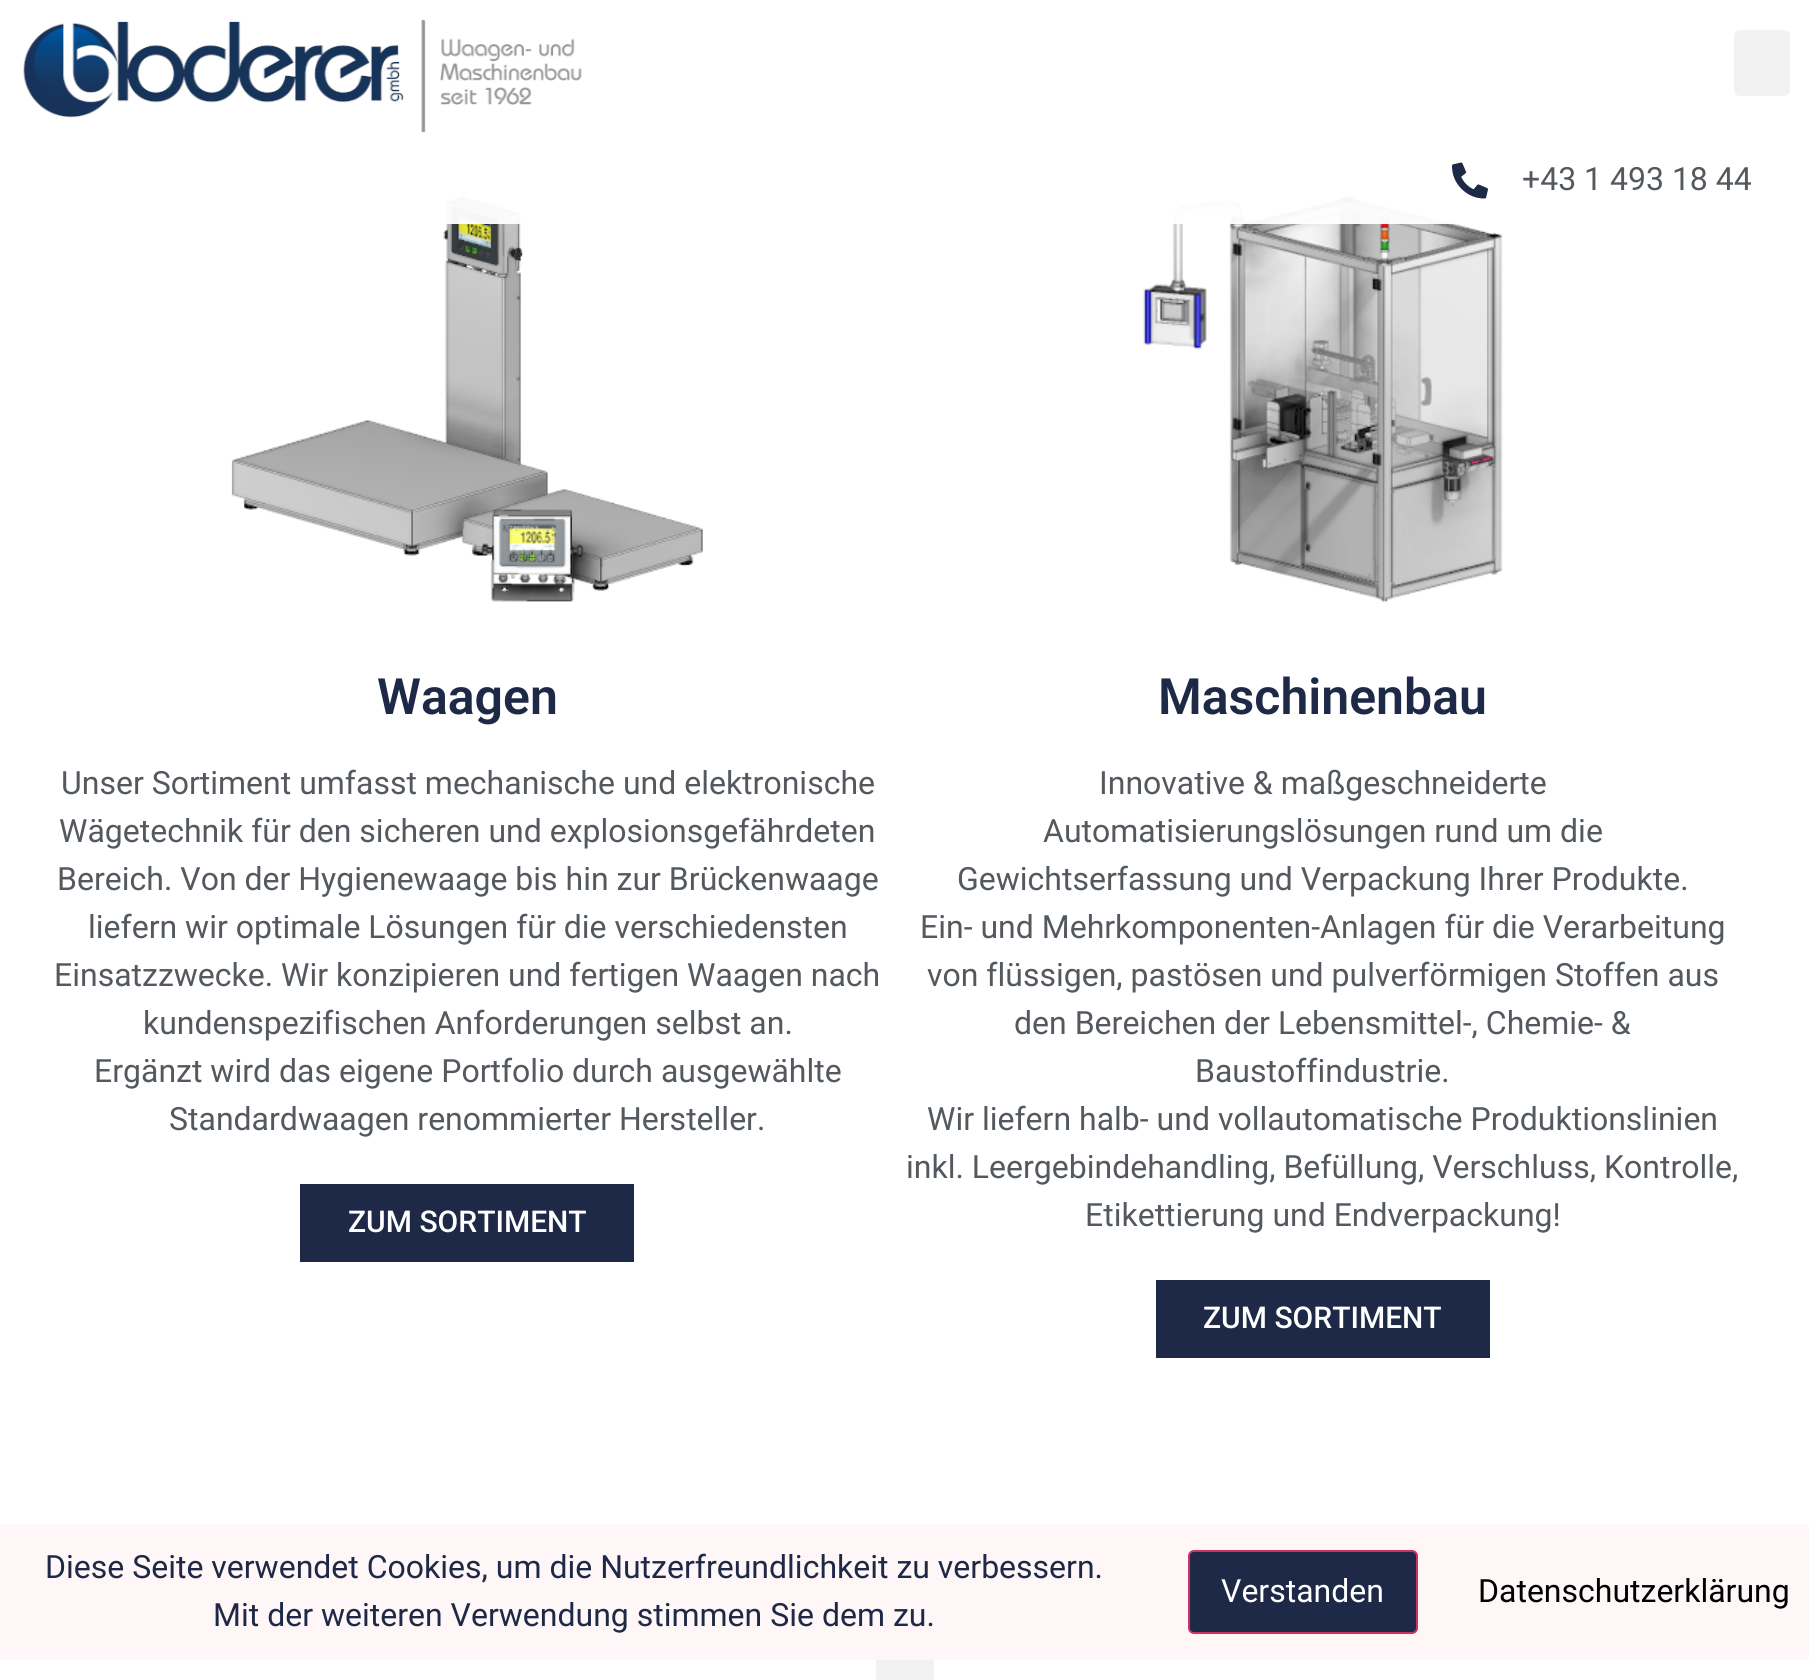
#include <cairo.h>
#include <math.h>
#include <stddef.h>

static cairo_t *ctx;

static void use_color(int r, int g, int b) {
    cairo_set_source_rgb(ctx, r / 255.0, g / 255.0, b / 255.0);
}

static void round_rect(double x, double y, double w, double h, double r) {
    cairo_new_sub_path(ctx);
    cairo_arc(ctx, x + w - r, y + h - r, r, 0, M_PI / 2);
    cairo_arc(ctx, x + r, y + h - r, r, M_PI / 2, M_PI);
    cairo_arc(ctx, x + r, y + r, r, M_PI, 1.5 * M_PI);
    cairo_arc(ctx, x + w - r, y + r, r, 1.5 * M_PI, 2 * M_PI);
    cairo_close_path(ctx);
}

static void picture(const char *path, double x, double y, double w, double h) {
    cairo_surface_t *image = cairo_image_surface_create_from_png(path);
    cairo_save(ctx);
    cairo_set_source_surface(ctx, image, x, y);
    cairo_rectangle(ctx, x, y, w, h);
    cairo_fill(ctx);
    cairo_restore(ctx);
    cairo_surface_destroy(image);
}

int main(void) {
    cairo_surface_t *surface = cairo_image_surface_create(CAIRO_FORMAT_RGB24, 1809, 1680);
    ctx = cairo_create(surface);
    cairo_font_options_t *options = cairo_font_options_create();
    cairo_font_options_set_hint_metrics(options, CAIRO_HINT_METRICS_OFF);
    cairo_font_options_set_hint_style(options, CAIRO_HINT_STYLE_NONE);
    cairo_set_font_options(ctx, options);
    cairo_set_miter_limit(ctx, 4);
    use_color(255, 255, 255);
    cairo_paint(ctx);
    picture("img3.png", 231, 196, 472, 406);
    picture("img4.png", 1143, 195, 360, 408);
    cairo_set_source_rgba(ctx, 1, 1, 1, 0.9);
    cairo_rectangle(ctx, 446, 195, 1011, 29);
    cairo_fill(ctx);
    picture("img1.png", 23, 20, 559, 112);
    use_color(242, 242, 242);
    round_rect(1734, 30, 56, 66, 6);
    cairo_fill(ctx);
    picture("img2.png", 1452, 162, 36, 37);
    cairo_select_font_face(ctx, "Roboto", CAIRO_FONT_SLANT_NORMAL, CAIRO_FONT_WEIGHT_NORMAL);
    cairo_set_font_size(ctx, 32);
    use_color(84, 89, 95);
    cairo_move_to(ctx, 1522, 190);
    cairo_show_text(ctx, "+43 1 493 18 44");
    cairo_set_source_rgba(ctx, 1, 1, 1, 0.5);
    cairo_rectangle(ctx, 447, 197, 1003, 27);
    cairo_fill(ctx);
    cairo_select_font_face(ctx, "Roboto SemiBold", CAIRO_FONT_SLANT_NORMAL, CAIRO_FONT_WEIGHT_NORMAL);
    cairo_set_font_size(ctx, 50);
    use_color(29, 41, 70);
    cairo_move_to(ctx, 377, 714);
    cairo_show_text(ctx, "Waagen");
    cairo_select_font_face(ctx, "Roboto", CAIRO_FONT_SLANT_NORMAL, CAIRO_FONT_WEIGHT_NORMAL);
    cairo_set_font_size(ctx, 32);
    use_color(84, 89, 95);
    cairo_move_to(ctx, 61, 794);
    cairo_show_text(ctx, "Unser Sortiment umfasst mechanische und elektronische");
    cairo_move_to(ctx, 59, 842);
    cairo_show_text(ctx, "Wägetechnik für den sicheren und explosionsgefährdeten");
    cairo_move_to(ctx, 57, 890);
    cairo_show_text(ctx, "Bereich. Von der Hygienewaage bis hin zur Brückenwaage");
    cairo_move_to(ctx, 88, 938);
    cairo_show_text(ctx, "liefern wir optimale Lösungen für die verschiedensten");
    cairo_move_to(ctx, 54, 986);
    cairo_show_text(ctx, "Einsatzzwecke. Wir konzipieren und fertigen Waagen nach");
    cairo_move_to(ctx, 143, 1034);
    cairo_show_text(ctx, "kundenspezifischen Anforderungen selbst an.");
    cairo_move_to(ctx, 94, 1082);
    cairo_show_text(ctx, "Ergänzt wird das eigene Portfolio durch ausgewählte");
    cairo_move_to(ctx, 169, 1130);
    cairo_show_text(ctx, "Standardwaagen renommierter Hersteller.");
    use_color(29, 41, 70);
    cairo_rectangle(ctx, 300, 1184, 334, 78);
    cairo_fill(ctx);
    cairo_select_font_face(ctx, "Roboto Medium", CAIRO_FONT_SLANT_NORMAL, CAIRO_FONT_WEIGHT_NORMAL);
    cairo_set_font_size(ctx, 30);
    use_color(255, 255, 255);
    cairo_move_to(ctx, 348, 1232);
    cairo_show_text(ctx, "ZUM SORTIMENT");
    cairo_select_font_face(ctx, "Roboto SemiBold", CAIRO_FONT_SLANT_NORMAL, CAIRO_FONT_WEIGHT_NORMAL);
    cairo_set_font_size(ctx, 50);
    use_color(29, 41, 70);
    cairo_move_to(ctx, 1158, 714);
    cairo_show_text(ctx, "Maschinenbau");
    cairo_select_font_face(ctx, "Roboto", CAIRO_FONT_SLANT_NORMAL, CAIRO_FONT_WEIGHT_NORMAL);
    cairo_set_font_size(ctx, 32);
    use_color(84, 89, 95);
    cairo_move_to(ctx, 1099, 794);
    cairo_show_text(ctx, "Innovative & maßgeschneiderte");
    cairo_move_to(ctx, 1043, 842);
    cairo_show_text(ctx, "Automatisierungslösungen rund um die");
    cairo_move_to(ctx, 957, 890);
    cairo_show_text(ctx, "Gewichtserfassung und Verpackung Ihrer Produkte.");
    cairo_move_to(ctx, 920, 938);
    cairo_show_text(ctx, "Ein- und Mehrkomponenten-Anlagen für die Verarbeitung");
    cairo_move_to(ctx, 927, 986);
    cairo_show_text(ctx, "von flüssigen, pastösen und pulverförmigen Stoffen aus");
    cairo_move_to(ctx, 1014, 1034);
    cairo_show_text(ctx, "den Bereichen der Lebensmittel-, Chemie- &");
    cairo_move_to(ctx, 1195, 1082);
    cairo_show_text(ctx, "Baustoffindustrie.");
    cairo_move_to(ctx, 927, 1130);
    cairo_show_text(ctx, "Wir liefern halb- und vollautomatische Produktionslinien");
    cairo_move_to(ctx, 906, 1178);
    cairo_show_text(ctx, "inkl. Leergebindehandling, Befüllung, Verschluss, Kontrolle,");
    cairo_move_to(ctx, 1085, 1226);
    cairo_show_text(ctx, "Etikettierung und Endverpackung!");
    use_color(29, 41, 70);
    cairo_rectangle(ctx, 1156, 1280, 334, 78);
    cairo_fill(ctx);
    cairo_select_font_face(ctx, "Roboto Medium", CAIRO_FONT_SLANT_NORMAL, CAIRO_FONT_WEIGHT_NORMAL);
    cairo_set_font_size(ctx, 30);
    use_color(255, 255, 255);
    cairo_move_to(ctx, 1203, 1328);
    cairo_show_text(ctx, "ZUM SORTIMENT");
    use_color(255, 247, 247);
    cairo_rectangle(ctx, 0, 1524, 1809, 136);
    cairo_fill(ctx);
    cairo_select_font_face(ctx, "Roboto", CAIRO_FONT_SLANT_NORMAL, CAIRO_FONT_WEIGHT_NORMAL);
    cairo_set_font_size(ctx, 32);
    use_color(29, 41, 70);
    cairo_move_to(ctx, 45, 1578);
    cairo_show_text(ctx, "Diese Seite verwendet Cookies, um die Nutzerfreundlichkeit zu verbessern.");
    cairo_move_to(ctx, 213, 1626);
    cairo_show_text(ctx, "Mit der weiteren Verwendung stimmen Sie dem zu.");
    round_rect(1189, 1551, 228, 82, 5);
    cairo_fill_preserve(ctx);
    use_color(204, 51, 102);
    cairo_stroke(ctx);
    use_color(255, 255, 255);
    cairo_move_to(ctx, 1221, 1602);
    cairo_show_text(ctx, "Verstanden");
    use_color(0, 0, 0);
    cairo_move_to(ctx, 1478, 1602);
    cairo_show_text(ctx, "Datenschutzerklärung");
    use_color(242, 242, 242);
    cairo_rectangle(ctx, 876, 1660, 58, 20);
    cairo_fill(ctx);
    cairo_surface_write_to_png(surface, "result.png");
    cairo_font_options_destroy(options);
    cairo_destroy(ctx);
    cairo_surface_destroy(surface);
    return 0;
}
